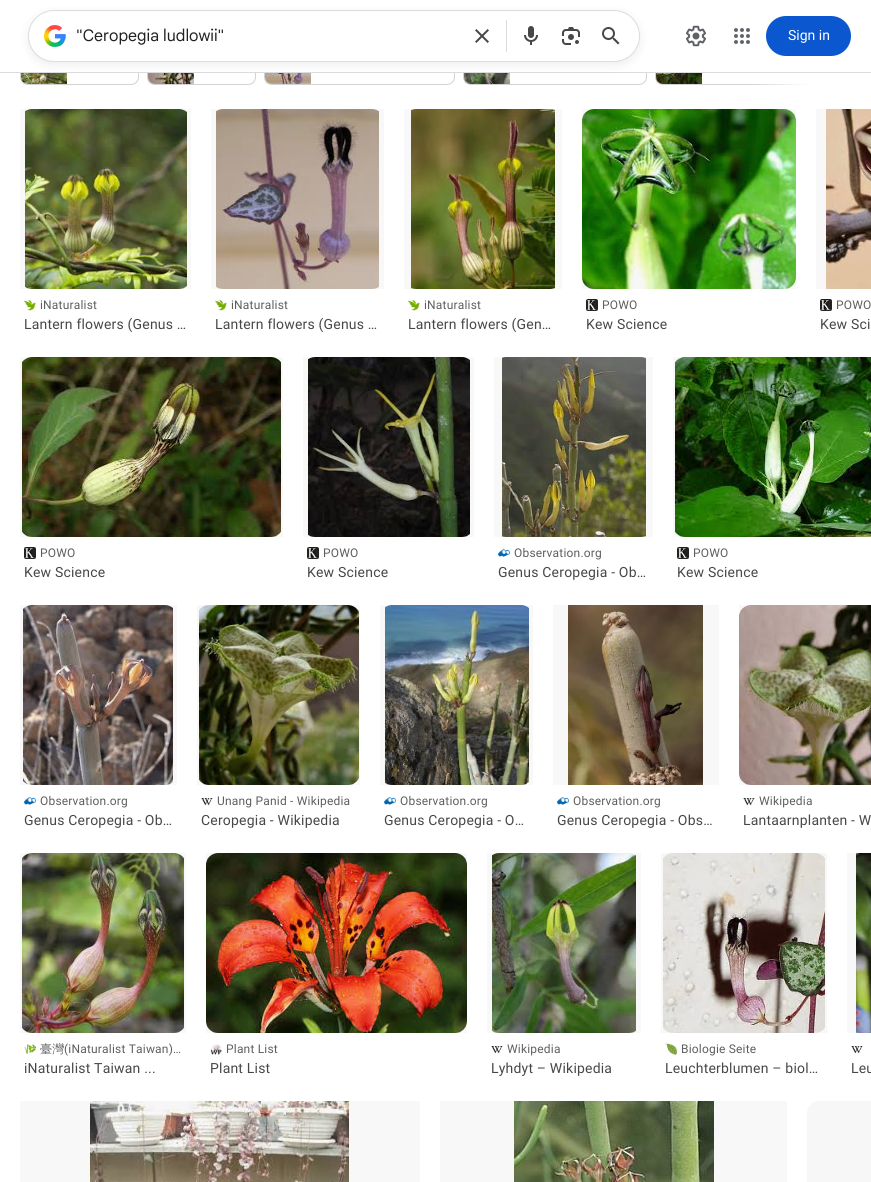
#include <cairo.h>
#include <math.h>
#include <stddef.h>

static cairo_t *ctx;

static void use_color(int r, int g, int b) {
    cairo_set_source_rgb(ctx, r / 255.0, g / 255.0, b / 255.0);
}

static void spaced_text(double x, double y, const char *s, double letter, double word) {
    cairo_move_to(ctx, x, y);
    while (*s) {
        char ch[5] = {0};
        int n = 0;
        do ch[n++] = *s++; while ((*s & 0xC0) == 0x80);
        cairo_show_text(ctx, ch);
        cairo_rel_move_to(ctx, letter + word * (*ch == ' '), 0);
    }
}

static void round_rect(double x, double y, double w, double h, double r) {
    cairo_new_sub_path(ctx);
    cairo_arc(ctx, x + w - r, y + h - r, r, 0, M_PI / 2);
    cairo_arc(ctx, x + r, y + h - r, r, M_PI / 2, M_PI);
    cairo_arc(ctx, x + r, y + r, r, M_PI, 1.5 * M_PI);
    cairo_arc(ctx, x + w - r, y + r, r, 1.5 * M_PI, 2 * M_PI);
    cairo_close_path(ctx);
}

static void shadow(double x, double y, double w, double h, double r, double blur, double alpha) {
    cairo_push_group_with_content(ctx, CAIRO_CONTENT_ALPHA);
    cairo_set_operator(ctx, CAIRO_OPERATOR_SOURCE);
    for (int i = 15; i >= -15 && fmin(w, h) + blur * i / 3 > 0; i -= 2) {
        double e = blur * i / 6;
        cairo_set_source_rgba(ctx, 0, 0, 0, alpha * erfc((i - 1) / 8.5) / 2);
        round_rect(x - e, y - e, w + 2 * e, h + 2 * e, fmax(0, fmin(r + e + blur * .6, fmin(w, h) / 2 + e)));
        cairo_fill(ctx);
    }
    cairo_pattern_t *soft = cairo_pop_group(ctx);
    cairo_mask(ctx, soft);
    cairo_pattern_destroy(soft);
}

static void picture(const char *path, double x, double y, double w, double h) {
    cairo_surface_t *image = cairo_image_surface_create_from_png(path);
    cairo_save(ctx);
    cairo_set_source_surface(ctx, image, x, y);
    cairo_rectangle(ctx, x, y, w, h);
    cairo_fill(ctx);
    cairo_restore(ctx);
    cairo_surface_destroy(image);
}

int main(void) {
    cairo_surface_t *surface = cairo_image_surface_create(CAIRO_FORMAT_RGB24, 871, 1182);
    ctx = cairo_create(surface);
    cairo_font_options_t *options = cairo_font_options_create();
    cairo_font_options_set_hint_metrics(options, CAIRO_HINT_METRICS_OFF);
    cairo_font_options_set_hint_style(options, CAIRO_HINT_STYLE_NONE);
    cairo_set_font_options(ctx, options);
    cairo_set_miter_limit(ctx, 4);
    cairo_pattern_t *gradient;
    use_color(255, 255, 255);
    cairo_paint(ctx);
    round_rect(20.5, 37.5, 118, 47, 7.5);
    use_color(210, 210, 210);
    cairo_set_line_width(ctx, 1);
    cairo_stroke(ctx);
    round_rect(147.5, 37.5, 108, 47, 7.5);
    cairo_stroke(ctx);
    round_rect(264.5, 37.5, 190, 47, 7.5);
    cairo_stroke(ctx);
    round_rect(463.5, 37.5, 183, 47, 7.5);
    cairo_stroke(ctx);
    cairo_save(ctx);
    cairo_rectangle(ctx, 20, 37, 813, 50);
    cairo_clip(ctx);
    round_rect(655.5, 37.5, 197, 47, 7.5);
    cairo_stroke(ctx);
    cairo_restore(ctx);
    use_color(218, 220, 224);
    cairo_rectangle(ctx, 0, 72, 871, 1);
    cairo_fill(ctx);
    use_color(255, 255, 255);
    cairo_rectangle(ctx, 20, 37, 813, 35);
    cairo_fill(ctx);
    picture("img8.png", 21, 73, 46, 11);
    cairo_set_source_rgba(ctx, 0, 0, 0, 0.03);
    cairo_rectangle(ctx, 21, 73, 46, 11);
    cairo_fill(ctx);
    picture("img9.png", 148, 73, 46, 11);
    cairo_rectangle(ctx, 148, 73, 46, 11);
    cairo_fill(ctx);
    picture("img10.png", 265, 73, 46, 11);
    cairo_rectangle(ctx, 265, 73, 46, 11);
    cairo_fill(ctx);
    picture("img11.png", 464, 73, 46, 11);
    cairo_rectangle(ctx, 464, 73, 46, 11);
    cairo_fill(ctx);
    use_color(31, 31, 31);
    shadow(28, 13, 612, 52, 26, 5, 0.08);
    use_color(255, 255, 255);
    round_rect(28.5, 10.5, 611, 51, 25.5);
    cairo_fill_preserve(ctx);
    use_color(218, 220, 224);
    cairo_stroke(ctx);
    picture("img1.png", 44, 25, 22, 22);
    cairo_select_font_face(ctx, "Google Sans", CAIRO_FONT_SLANT_NORMAL, CAIRO_FONT_WEIGHT_NORMAL);
    cairo_set_font_size(ctx, 16);
    use_color(33, 33, 33);
    cairo_move_to(ctx, 76, 41);
    cairo_show_text(ctx, "\"Ceropegia ludlowii\"");
    picture("img2.png", 475, 29, 14, 14);
    use_color(218, 220, 224);
    cairo_rectangle(ctx, 506, 20, 1, 32);
    cairo_fill(ctx);
    picture("img3.png", 524, 26, 14, 19);
    picture("img4.png", 562, 27, 18, 18);
    picture("img5.png", 602, 27, 18, 18);
    picture("img6.png", 686, 25, 20, 22);
    picture("img7.png", 734, 28, 16, 16);
    use_color(11, 87, 208);
    round_rect(766, 16, 85, 40, 20);
    cairo_fill(ctx);
    cairo_select_font_face(ctx, "Roboto", CAIRO_FONT_SLANT_NORMAL, CAIRO_FONT_WEIGHT_NORMAL);
    cairo_set_font_size(ctx, 14);
    use_color(255, 255, 255);
    cairo_move_to(ctx, 788, 40);
    cairo_show_text(ctx, "Sign in");
    picture("img12.png", 656, 73, 46, 11);
    cairo_set_source_rgba(ctx, 0, 0, 0, 0.03);
    cairo_rectangle(ctx, 656, 73, 46, 11);
    cairo_fill(ctx);
    gradient = cairo_pattern_create_linear(749, 62, 849, 62);
    cairo_pattern_add_color_stop_rgba(gradient, 0, 1, 1, 1, 0);
    cairo_pattern_add_color_stop_rgba(gradient, 0.6, 1, 1, 1, 1);
    cairo_pattern_add_color_stop_rgba(gradient, 1, 1, 1, 1, 1);
    cairo_set_source(ctx, gradient);
    cairo_pattern_destroy(gradient);
    cairo_rectangle(ctx, 752, 84, 81, 1);
    cairo_fill(ctx);
    picture("img13.png", 25, 109, 162, 180);
    cairo_set_source_rgba(ctx, 0, 0, 0, 0.03);
    cairo_rectangle(ctx, 20, 109, 171, 180);
    cairo_fill(ctx);
    picture("img14.png", 24, 299, 12, 12);
    cairo_set_font_size(ctx, 12);
    use_color(94, 94, 94);
    spaced_text(40, 309, "iNaturalist", 0.2, 0);
    cairo_set_font_size(ctx, 14);
    use_color(71, 71, 71);
    spaced_text(24, 329, "Lantern flowers (Genus …", 0.2, 0);
    picture("img15.png", 216, 109, 163, 180);
    cairo_set_source_rgba(ctx, 0, 0, 0, 0.03);
    cairo_rectangle(ctx, 211, 109, 173, 180);
    cairo_fill(ctx);
    picture("img16.png", 215, 299, 12, 12);
    cairo_set_font_size(ctx, 12);
    use_color(94, 94, 94);
    spaced_text(231, 309, "iNaturalist", 0.2, 0);
    cairo_set_font_size(ctx, 14);
    use_color(71, 71, 71);
    spaced_text(215, 329, "Lantern flowers (Genus …", 0.2, 0);
    picture("img17.png", 411, 109, 144, 180);
    cairo_set_source_rgba(ctx, 0, 0, 0, 0.03);
    cairo_rectangle(ctx, 404, 109, 158, 180);
    cairo_fill(ctx);
    picture("img16.png", 408, 299, 12, 12);
    cairo_set_font_size(ctx, 12);
    use_color(94, 94, 94);
    spaced_text(424, 309, "iNaturalist", 0.2, 0);
    cairo_set_font_size(ctx, 14);
    use_color(71, 71, 71);
    spaced_text(408, 329, "Lantern flowers (Gen…", 0.2, 0);
    picture("img18.png", 582, 109, 214, 180);
    cairo_set_source_rgba(ctx, 0, 0, 0, 0.03);
    cairo_rectangle(ctx, 582, 109, 214, 180);
    cairo_fill(ctx);
    picture("img19.png", 586, 299, 12, 12);
    cairo_set_font_size(ctx, 12);
    use_color(94, 94, 94);
    spaced_text(602, 309, "POWO", 0.2, 0);
    cairo_set_font_size(ctx, 14);
    use_color(71, 71, 71);
    spaced_text(586, 329, "Kew Science", 0.2, 0);
    picture("img20.png", 826, 109, 45, 180);
    cairo_set_source_rgba(ctx, 0, 0, 0, 0.03);
    cairo_rectangle(ctx, 816, 109, 55, 180);
    cairo_fill(ctx);
    picture("img21.png", 820, 299, 12, 12);
    cairo_set_font_size(ctx, 12);
    use_color(94, 94, 94);
    spaced_text(836, 309, "POWO", 0.2, 0);
    cairo_set_font_size(ctx, 14);
    use_color(71, 71, 71);
    spaced_text(820, 329, "Kew Sci", 0.2, 0);
    picture("img22.png", 22, 357, 259, 180);
    cairo_set_source_rgba(ctx, 0, 0, 0, 0.03);
    cairo_rectangle(ctx, 20, 357, 263, 180);
    cairo_fill(ctx);
    picture("img19.png", 24, 547, 12, 12);
    cairo_set_font_size(ctx, 12);
    use_color(94, 94, 94);
    spaced_text(40, 557, "POWO", 0.2, 0);
    cairo_set_font_size(ctx, 14);
    use_color(71, 71, 71);
    spaced_text(24, 577, "Kew Science", 0.2, 0);
    picture("img23.png", 308, 357, 162, 180);
    cairo_set_source_rgba(ctx, 0, 0, 0, 0.03);
    cairo_rectangle(ctx, 303, 357, 171, 180);
    cairo_fill(ctx);
    picture("img24.png", 307, 547, 12, 12);
    cairo_set_font_size(ctx, 12);
    use_color(94, 94, 94);
    spaced_text(323, 557, "POWO", 0.2, 0);
    cairo_set_font_size(ctx, 14);
    use_color(71, 71, 71);
    spaced_text(307, 577, "Kew Science", 0.2, 0);
    picture("img25.png", 502, 357, 144, 180);
    cairo_set_source_rgba(ctx, 0, 0, 0, 0.03);
    cairo_rectangle(ctx, 494, 357, 159, 180);
    cairo_fill(ctx);
    picture("img26.png", 498, 549, 12, 8);
    cairo_set_font_size(ctx, 12);
    use_color(94, 94, 94);
    spaced_text(514, 557, "Observation.org", 0.2, 0);
    cairo_set_font_size(ctx, 14);
    use_color(71, 71, 71);
    spaced_text(498, 577, "Genus Ceropegia - Ob…", 0.2, 0);
    picture("img27.png", 675, 357, 196, 180);
    cairo_set_source_rgba(ctx, 0, 0, 0, 0.03);
    cairo_rectangle(ctx, 673, 357, 198, 180);
    cairo_fill(ctx);
    picture("img24.png", 677, 547, 12, 12);
    cairo_set_font_size(ctx, 12);
    use_color(94, 94, 94);
    spaced_text(693, 557, "POWO", 0.2, 0);
    cairo_set_font_size(ctx, 14);
    use_color(71, 71, 71);
    spaced_text(677, 577, "Kew Science", 0.2, 0);
    picture("img28.png", 23, 605, 150, 180);
    cairo_set_source_rgba(ctx, 0, 0, 0, 0.03);
    cairo_rectangle(ctx, 20, 605, 157, 180);
    cairo_fill(ctx);
    picture("img29.png", 24, 797, 12, 8);
    cairo_set_font_size(ctx, 12);
    use_color(94, 94, 94);
    spaced_text(40, 805, "Observation.org", 0.2, 0);
    cairo_set_font_size(ctx, 14);
    use_color(71, 71, 71);
    spaced_text(24, 825, "Genus Ceropegia - Ob…", 0.2, 0);
    picture("img30.png", 199, 605, 160, 180);
    cairo_set_source_rgba(ctx, 0, 0, 0, 0.03);
    cairo_rectangle(ctx, 197, 605, 163, 180);
    cairo_fill(ctx);
    picture("img31.png", 201, 798, 12, 8);
    cairo_set_font_size(ctx, 12);
    use_color(94, 94, 94);
    spaced_text(217, 805, "Unang Panid - Wikipedia", 0.2, 0);
    cairo_set_font_size(ctx, 14);
    use_color(71, 71, 71);
    spaced_text(201, 825, "Ceropegia - Wikipedia", 0.2, 0);
    picture("img32.png", 385, 605, 144, 180);
    cairo_set_source_rgba(ctx, 0, 0, 0, 0.03);
    cairo_rectangle(ctx, 380, 605, 153, 180);
    cairo_fill(ctx);
    picture("img26.png", 384, 797, 12, 8);
    cairo_set_font_size(ctx, 12);
    use_color(94, 94, 94);
    spaced_text(400, 805, "Observation.org", 0.2, 0);
    cairo_set_font_size(ctx, 14);
    use_color(71, 71, 71);
    spaced_text(384, 825, "Genus Ceropegia - O…", 0.2, 0);
    picture("img33.png", 568, 605, 135, 180);
    cairo_set_source_rgba(ctx, 0, 0, 0, 0.03);
    cairo_rectangle(ctx, 553, 605, 166, 180);
    cairo_fill(ctx);
    picture("img26.png", 557, 797, 12, 8);
    cairo_set_font_size(ctx, 12);
    use_color(94, 94, 94);
    spaced_text(573, 805, "Observation.org", 0.2, 0);
    cairo_set_font_size(ctx, 14);
    use_color(71, 71, 71);
    spaced_text(557, 825, "Genus Ceropegia - Obs…", 0.2, 0);
    picture("img34.png", 739, 605, 132, 180);
    cairo_set_source_rgba(ctx, 0, 0, 0, 0.03);
    cairo_rectangle(ctx, 739, 605, 132, 180);
    cairo_fill(ctx);
    picture("img35.png", 743, 798, 12, 8);
    cairo_set_font_size(ctx, 12);
    use_color(94, 94, 94);
    spaced_text(759, 805, "Wikipedia", 0.2, 0);
    cairo_set_font_size(ctx, 14);
    use_color(71, 71, 71);
    spaced_text(743, 825, "Lantaarnplanten - W", 0.2, 0);
    picture("img36.png", 22, 853, 162, 180);
    cairo_set_source_rgba(ctx, 0, 0, 0, 0.03);
    cairo_rectangle(ctx, 20, 853, 166, 180);
    cairo_fill(ctx);
    picture("img37.png", 24, 1044, 12, 10);
    cairo_select_font_face(ctx, "WenQuanYi Zen Hei Medium", CAIRO_FONT_SLANT_NORMAL, CAIRO_FONT_WEIGHT_NORMAL);
    cairo_set_font_size(ctx, 12);
    use_color(94, 94, 94);
    spaced_text(40, 1053, "臺灣", 0.2, 0);
    cairo_select_font_face(ctx, "Roboto", CAIRO_FONT_SLANT_NORMAL, CAIRO_FONT_WEIGHT_NORMAL);
    spaced_text(64, 1053, "(iNaturalist Taiwan)…", 0.2, 0);
    cairo_set_font_size(ctx, 14);
    use_color(71, 71, 71);
    spaced_text(24, 1073, "iNaturalist Taiwan ...", 0.2, 0);
    picture("img38.png", 206, 853, 261, 180);
    cairo_set_source_rgba(ctx, 0, 0, 0, 0.03);
    cairo_rectangle(ctx, 206, 853, 261, 180);
    cairo_fill(ctx);
    picture("img39.png", 210, 1043, 12, 12);
    cairo_set_font_size(ctx, 12);
    use_color(94, 94, 94);
    spaced_text(226, 1053, "Plant List", 0.2, 0);
    cairo_set_font_size(ctx, 14);
    use_color(71, 71, 71);
    spaced_text(210, 1073, "Plant List", 0.2, 0);
    picture("img40.png", 492, 853, 144, 180);
    cairo_set_source_rgba(ctx, 0, 0, 0, 0.03);
    cairo_rectangle(ctx, 487, 853, 154, 180);
    cairo_fill(ctx);
    picture("img31.png", 491, 1046, 12, 8);
    cairo_set_font_size(ctx, 12);
    use_color(94, 94, 94);
    spaced_text(507, 1053, "Wikipedia", 0.2, 0);
    cairo_set_font_size(ctx, 14);
    use_color(71, 71, 71);
    spaced_text(491, 1073, "Lyhdyt – Wikipedia", 0.2, 0);
    picture("img41.png", 663, 853, 162, 180);
    cairo_set_source_rgba(ctx, 0, 0, 0, 0.03);
    cairo_rectangle(ctx, 661, 853, 166, 180);
    cairo_fill(ctx);
    picture("img42.png", 665, 1043, 12, 12);
    cairo_set_font_size(ctx, 12);
    use_color(94, 94, 94);
    spaced_text(681, 1053, "Biologie Seite", 0.2, 0);
    cairo_set_font_size(ctx, 14);
    use_color(71, 71, 71);
    spaced_text(665, 1073, "Leuchterblumen – biol…", 0.2, 0);
    picture("img43.png", 856, 853, 15, 180);
    cairo_set_source_rgba(ctx, 0, 0, 0, 0.03);
    cairo_rectangle(ctx, 847, 853, 24, 180);
    cairo_fill(ctx);
    picture("img35.png", 851, 1046, 12, 8);
    use_color(71, 71, 71);
    spaced_text(851, 1073, "Leu", 0.2, 0);
    picture("img44.png", 90, 1101, 259, 81);
    cairo_set_source_rgba(ctx, 0, 0, 0, 0.03);
    cairo_rectangle(ctx, 20, 1101, 400, 81);
    cairo_fill(ctx);
    picture("img45.png", 514, 1101, 200, 81);
    cairo_rectangle(ctx, 440, 1101, 347, 81);
    cairo_fill(ctx);
    use_color(247, 247, 247);
    round_rect(807, 1101, 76, 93, 12);
    cairo_fill(ctx);
    cairo_surface_write_to_png(surface, "result.png");
    cairo_font_options_destroy(options);
    cairo_destroy(ctx);
    cairo_surface_destroy(surface);
    return 0;
}
